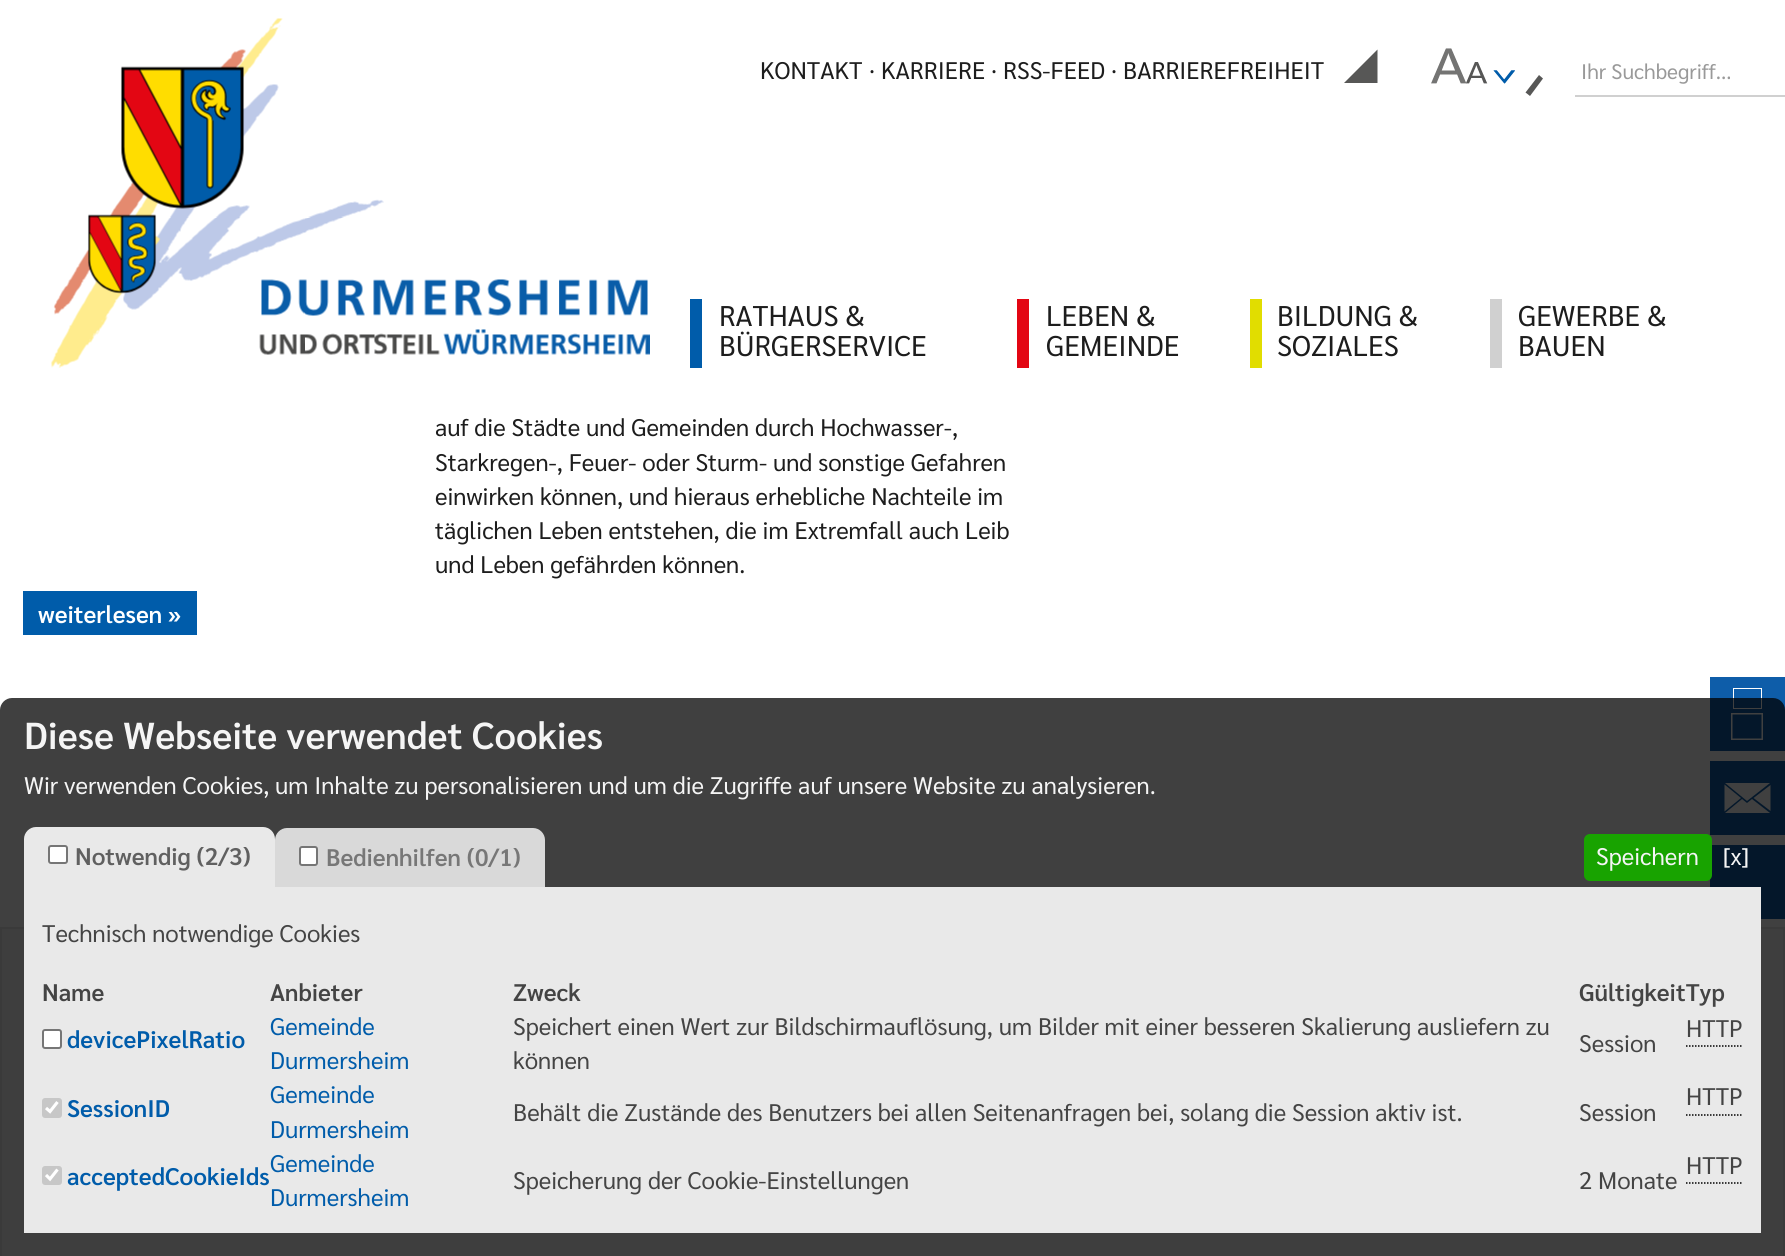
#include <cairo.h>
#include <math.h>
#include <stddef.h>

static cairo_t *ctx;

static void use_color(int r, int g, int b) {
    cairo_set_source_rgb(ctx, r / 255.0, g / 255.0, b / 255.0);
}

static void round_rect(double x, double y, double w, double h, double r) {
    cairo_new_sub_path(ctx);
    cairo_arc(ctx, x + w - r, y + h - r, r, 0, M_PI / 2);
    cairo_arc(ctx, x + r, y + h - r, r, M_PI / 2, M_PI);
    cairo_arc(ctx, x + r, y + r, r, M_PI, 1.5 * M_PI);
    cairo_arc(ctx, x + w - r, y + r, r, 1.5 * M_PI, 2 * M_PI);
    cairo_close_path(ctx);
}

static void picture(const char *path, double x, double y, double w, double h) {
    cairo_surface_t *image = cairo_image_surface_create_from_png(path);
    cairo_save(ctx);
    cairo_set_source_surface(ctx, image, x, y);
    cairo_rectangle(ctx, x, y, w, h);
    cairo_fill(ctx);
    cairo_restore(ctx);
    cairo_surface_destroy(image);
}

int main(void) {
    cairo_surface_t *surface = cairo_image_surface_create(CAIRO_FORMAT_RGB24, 1785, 1256);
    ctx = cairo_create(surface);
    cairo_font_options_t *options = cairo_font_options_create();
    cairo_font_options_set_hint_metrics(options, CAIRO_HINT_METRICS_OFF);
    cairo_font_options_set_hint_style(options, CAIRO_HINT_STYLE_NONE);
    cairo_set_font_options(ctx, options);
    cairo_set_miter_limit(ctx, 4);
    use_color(255, 255, 255);
    cairo_paint(ctx);
    cairo_select_font_face(ctx, "Sarabun", CAIRO_FONT_SLANT_NORMAL, CAIRO_FONT_WEIGHT_NORMAL);
    cairo_set_font_size(ctx, 24);
    use_color(29, 29, 29);
    cairo_move_to(ctx, 760, 79);
    cairo_show_text(ctx, "KONTAKT");
    cairo_move_to(ctx, 869, 73);
    cairo_show_text(ctx, ".");
    cairo_move_to(ctx, 881, 79);
    cairo_show_text(ctx, "KARRIERE");
    cairo_move_to(ctx, 991, 73);
    cairo_show_text(ctx, ".");
    cairo_move_to(ctx, 1003, 79);
    cairo_show_text(ctx, "RSS-FEED");
    cairo_move_to(ctx, 1111, 73);
    cairo_show_text(ctx, ".");
    cairo_move_to(ctx, 1123, 79);
    cairo_show_text(ctx, "BARRIEREFREIHEIT");
    use_color(87, 87, 86);
    cairo_new_path(ctx);
    cairo_move_to(ctx, 1344, 83);
    cairo_line_to(ctx, 1377.5, 83);
    cairo_line_to(ctx, 1377.5, 49.5);
    cairo_close_path(ctx);
    cairo_fill(ctx);
    picture("img1.png", 1431, 48, 84, 36);
    cairo_new_path(ctx);
    cairo_move_to(ctx, 1525.5, 92.5);
    cairo_line_to(ctx, 1530, 96);
    cairo_line_to(ctx, 1543, 78.5);
    cairo_line_to(ctx, 1539, 75);
    cairo_close_path(ctx);
    cairo_fill(ctx);
    use_color(208, 208, 208);
    cairo_rectangle(ctx, 1575, 95, 210, 2);
    cairo_fill(ctx);
    cairo_set_font_size(ctx, 21);
    use_color(153, 153, 153);
    cairo_move_to(ctx, 1581, 79);
    cairo_show_text(ctx, "Ihr Suchbegriff...");
    picture("img2.png", 51, 18, 599, 350);
    use_color(0, 92, 170);
    cairo_rectangle(ctx, 690, 299, 12, 69);
    cairo_fill(ctx);
    cairo_set_font_size(ctx, 28.5);
    use_color(29, 29, 29);
    cairo_move_to(ctx, 719, 326);
    cairo_show_text(ctx, "RATHAUS &");
    cairo_move_to(ctx, 719, 356);
    cairo_show_text(ctx, "BÜRGERSERVICE");
    use_color(227, 6, 19);
    cairo_rectangle(ctx, 1017, 299, 12, 69);
    cairo_fill(ctx);
    use_color(29, 29, 29);
    cairo_move_to(ctx, 1046, 326);
    cairo_show_text(ctx, "LEBEN &");
    cairo_move_to(ctx, 1046, 356);
    cairo_show_text(ctx, "GEMEINDE");
    use_color(225, 221, 0);
    cairo_rectangle(ctx, 1250, 299, 12, 69);
    cairo_fill(ctx);
    use_color(29, 29, 29);
    cairo_move_to(ctx, 1277, 326);
    cairo_show_text(ctx, "BILDUNG &");
    cairo_move_to(ctx, 1277, 356);
    cairo_show_text(ctx, "SOZIALES");
    use_color(208, 208, 208);
    cairo_rectangle(ctx, 1490, 299, 12, 69);
    cairo_fill(ctx);
    use_color(29, 29, 29);
    cairo_move_to(ctx, 1518, 326);
    cairo_show_text(ctx, "GEWERBE &");
    cairo_move_to(ctx, 1518, 356);
    cairo_show_text(ctx, "BAUEN");
    cairo_set_font_size(ctx, 24);
    cairo_move_to(ctx, 435, 436);
    cairo_show_text(ctx, "auf die Städte und Gemeinden durch Hochwasser-,");
    cairo_move_to(ctx, 435, 471);
    cairo_show_text(ctx, "Starkregen-, Feuer- oder Sturm- und sonstige Gefahren");
    cairo_move_to(ctx, 435, 505);
    cairo_show_text(ctx, "einwirken können, und hieraus erhebliche Nachteile im");
    cairo_move_to(ctx, 435, 539);
    cairo_show_text(ctx, "täglichen Leben entstehen, die im Extremfall auch Leib");
    cairo_move_to(ctx, 435, 573);
    cairo_show_text(ctx, "und Leben gefährden können.");
    use_color(0, 92, 170);
    cairo_rectangle(ctx, 23, 591, 174, 44);
    cairo_fill(ctx);
    cairo_select_font_face(ctx, "Sarabun SemiBold", CAIRO_FONT_SLANT_NORMAL, CAIRO_FONT_WEIGHT_NORMAL);
    use_color(255, 255, 255);
    cairo_move_to(ctx, 38, 623);
    cairo_show_text(ctx, "weiterlesen »");
    use_color(14, 93, 169);
    cairo_rectangle(ctx, 1710, 677, 75, 74);
    cairo_fill(ctx);
    cairo_rectangle(ctx, 1733.5, 688.5, 28, 20);
    use_color(255, 255, 255);
    cairo_set_line_width(ctx, 1);
    cairo_stroke(ctx);
    cairo_rectangle(ctx, 1731.75, 713.75, 30.5, 25.5);
    cairo_set_line_width(ctx, 1.5);
    cairo_stroke(ctx);
    use_color(14, 93, 169);
    cairo_rectangle(ctx, 1710, 761, 75, 74);
    cairo_fill(ctx);
    use_color(255, 255, 255);
    cairo_new_path(ctx);
    cairo_move_to(ctx, 1725, 783);
    cairo_line_to(ctx, 1770, 783);
    cairo_line_to(ctx, 1747, 801);
    cairo_close_path(ctx);
    cairo_fill(ctx);
    cairo_new_path(ctx);
    cairo_move_to(ctx, 1724.5, 784.5);
    cairo_line_to(ctx, 1741, 798);
    cairo_line_to(ctx, 1724.5, 811.5);
    cairo_close_path(ctx);
    cairo_fill(ctx);
    cairo_new_path(ctx);
    cairo_move_to(ctx, 1725, 813);
    cairo_line_to(ctx, 1742, 799);
    cairo_line_to(ctx, 1747, 803);
    cairo_line_to(ctx, 1752, 799);
    cairo_line_to(ctx, 1770, 813);
    cairo_close_path(ctx);
    cairo_fill(ctx);
    cairo_new_path(ctx);
    cairo_move_to(ctx, 1753.5, 798);
    cairo_line_to(ctx, 1770.5, 785);
    cairo_line_to(ctx, 1770.5, 811);
    cairo_close_path(ctx);
    cairo_fill(ctx);
    use_color(14, 93, 169);
    cairo_rectangle(ctx, 1710, 845, 75, 74);
    cairo_fill(ctx);
    use_color(248, 248, 248);
    cairo_rectangle(ctx, 1, 928, 1783, 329);
    cairo_fill_preserve(ctx);
    use_color(231, 231, 231);
    cairo_set_line_width(ctx, 2);
    cairo_stroke(ctx);
    cairo_set_source_rgba(ctx, 0, 0, 0, 0.75);
    cairo_new_path(ctx);
    cairo_move_to(ctx, 12, 698);
    cairo_line_to(ctx, 1773, 698);
    cairo_curve_to(ctx, 1779.5, 698, 1785, 703.5, 1785, 710);
    cairo_line_to(ctx, 1785, 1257);
    cairo_line_to(ctx, 0, 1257);
    cairo_line_to(ctx, 0, 710);
    cairo_curve_to(ctx, 0, 703.5, 5.5, 698, 12, 698);
    cairo_close_path(ctx);
    cairo_fill(ctx);
    cairo_set_font_size(ctx, 37.5);
    use_color(245, 245, 245);
    cairo_move_to(ctx, 24, 749);
    cairo_show_text(ctx, "Diese Webseite verwendet Cookies");
    cairo_select_font_face(ctx, "Sarabun", CAIRO_FONT_SLANT_NORMAL, CAIRO_FONT_WEIGHT_NORMAL);
    cairo_set_font_size(ctx, 24);
    cairo_move_to(ctx, 24, 794);
    cairo_show_text(ctx, "Wir verwenden Cookies, um Inhalte zu personalisieren und um die Zugriffe auf unsere Website zu analysieren.");
    use_color(233, 233, 233);
    cairo_new_path(ctx);
    cairo_move_to(ctx, 36, 827);
    cairo_line_to(ctx, 263, 827);
    cairo_curve_to(ctx, 269.5, 827, 275, 832.5, 275, 839);
    cairo_line_to(ctx, 275, 887);
    cairo_line_to(ctx, 24, 887);
    cairo_line_to(ctx, 24, 839);
    cairo_curve_to(ctx, 24, 832.5, 29.5, 827, 36, 827);
    cairo_close_path(ctx);
    cairo_fill(ctx);
    use_color(255, 255, 255);
    round_rect(49, 846, 18, 17, 2);
    cairo_fill_preserve(ctx);
    use_color(118, 118, 118);
    cairo_stroke(ctx);
    cairo_select_font_face(ctx, "Sarabun SemiBold", CAIRO_FONT_SLANT_NORMAL, CAIRO_FONT_WEIGHT_NORMAL);
    use_color(96, 96, 96);
    cairo_move_to(ctx, 75, 865);
    cairo_show_text(ctx, "Notwendig (2/3)");
    use_color(217, 217, 217);
    cairo_new_path(ctx);
    cairo_move_to(ctx, 287, 828);
    cairo_line_to(ctx, 533, 828);
    cairo_curve_to(ctx, 539.5, 828, 545, 833.5, 545, 840);
    cairo_line_to(ctx, 545, 887);
    cairo_line_to(ctx, 275, 887);
    cairo_line_to(ctx, 275, 840);
    cairo_curve_to(ctx, 275, 833.5, 280.5, 828, 287, 828);
    cairo_close_path(ctx);
    cairo_fill(ctx);
    use_color(255, 255, 255);
    round_rect(300, 847, 17, 18, 2);
    cairo_fill_preserve(ctx);
    use_color(118, 118, 118);
    cairo_stroke(ctx);
    use_color(119, 119, 119);
    cairo_move_to(ctx, 326, 866);
    cairo_show_text(ctx, "Bedienhilfen (0/1)");
    use_color(24, 163, 0);
    round_rect(1584, 834, 128, 47, 6);
    cairo_fill(ctx);
    cairo_select_font_face(ctx, "Sarabun", CAIRO_FONT_SLANT_NORMAL, CAIRO_FONT_WEIGHT_NORMAL);
    use_color(245, 245, 245);
    cairo_move_to(ctx, 1596, 865);
    cairo_show_text(ctx, "Speichern");
    cairo_move_to(ctx, 1723, 865);
    cairo_show_text(ctx, "[x]");
    use_color(233, 233, 233);
    cairo_rectangle(ctx, 24, 887, 1737, 346);
    cairo_fill(ctx);
    use_color(68, 68, 68);
    cairo_move_to(ctx, 42, 942);
    cairo_show_text(ctx, "Technisch notwendige Cookies");
    cairo_select_font_face(ctx, "Sarabun SemiBold", CAIRO_FONT_SLANT_NORMAL, CAIRO_FONT_WEIGHT_NORMAL);
    cairo_move_to(ctx, 42, 1001);
    cairo_show_text(ctx, "Name");
    cairo_move_to(ctx, 270, 1001);
    cairo_show_text(ctx, "Anbieter");
    cairo_move_to(ctx, 513, 1001);
    cairo_show_text(ctx, "Zweck");
    cairo_move_to(ctx, 1579, 1001);
    cairo_show_text(ctx, "GültigkeitTyp");
    use_color(255, 255, 255);
    round_rect(43, 1030, 18, 18, 2);
    cairo_fill_preserve(ctx);
    use_color(118, 118, 118);
    cairo_stroke(ctx);
    use_color(0, 92, 170);
    cairo_move_to(ctx, 67, 1048);
    cairo_show_text(ctx, "devicePixelRatio");
    cairo_select_font_face(ctx, "Sarabun", CAIRO_FONT_SLANT_NORMAL, CAIRO_FONT_WEIGHT_NORMAL);
    cairo_move_to(ctx, 270, 1035);
    cairo_show_text(ctx, "Gemeinde");
    cairo_move_to(ctx, 270, 1069);
    cairo_show_text(ctx, "Durmersheim");
    use_color(68, 68, 68);
    cairo_move_to(ctx, 513, 1035);
    cairo_show_text(ctx, "Speichert einen Wert zur Bildschirmauflösung, um Bilder mit einer besseren Skalierung ausliefern zu");
    cairo_move_to(ctx, 513, 1069);
    cairo_show_text(ctx, "können");
    cairo_move_to(ctx, 1579, 1052);
    cairo_show_text(ctx, "Session");
    cairo_new_path(ctx);
    cairo_move_to(ctx, 1686, 1046);
    cairo_line_to(ctx, 1743, 1046);
    use_color(0, 0, 0);
    cairo_set_line_width(ctx, 1.5);
    cairo_set_dash(ctx, (double[]){1.5, 1.5}, 2, 0);
    cairo_stroke(ctx);
    use_color(68, 68, 68);
    cairo_move_to(ctx, 1686, 1037);
    cairo_show_text(ctx, "HTTP");
    use_color(0, 92, 170);
    cairo_move_to(ctx, 270, 1103);
    cairo_show_text(ctx, "Gemeinde");
    cairo_move_to(ctx, 270, 1138);
    cairo_show_text(ctx, "Durmersheim");
    cairo_new_path(ctx);
    cairo_move_to(ctx, 1686, 1115);
    cairo_line_to(ctx, 1743, 1115);
    use_color(0, 0, 0);
    cairo_stroke(ctx);
    use_color(68, 68, 68);
    cairo_move_to(ctx, 1686, 1105);
    cairo_show_text(ctx, "HTTP");
    use_color(199, 199, 199);
    round_rect(42, 1098, 20, 20, 3);
    cairo_fill(ctx);
    cairo_new_path(ctx);
    cairo_move_to(ctx, 46, 1108);
    cairo_line_to(ctx, 50, 1111.5);
    cairo_line_to(ctx, 57.5, 1102);
    use_color(255, 255, 255);
    cairo_set_line_width(ctx, 3.1);
    cairo_set_dash(ctx, NULL, 0, 0);
    cairo_stroke(ctx);
    cairo_select_font_face(ctx, "Sarabun SemiBold", CAIRO_FONT_SLANT_NORMAL, CAIRO_FONT_WEIGHT_NORMAL);
    use_color(0, 92, 170);
    cairo_move_to(ctx, 67, 1117);
    cairo_show_text(ctx, "SessionID");
    cairo_select_font_face(ctx, "Sarabun", CAIRO_FONT_SLANT_NORMAL, CAIRO_FONT_WEIGHT_NORMAL);
    use_color(68, 68, 68);
    cairo_move_to(ctx, 513, 1121);
    cairo_show_text(ctx, "Behält die Zustände des Benutzers bei allen Seitenanfragen bei, solang die Session aktiv ist.");
    cairo_move_to(ctx, 1579, 1121);
    cairo_show_text(ctx, "Session");
    use_color(199, 199, 199);
    round_rect(42, 1166, 20, 19, 3);
    cairo_fill(ctx);
    cairo_new_path(ctx);
    cairo_move_to(ctx, 46, 1175);
    cairo_line_to(ctx, 50, 1179);
    cairo_line_to(ctx, 57.5, 1169.5);
    use_color(255, 255, 255);
    cairo_stroke(ctx);
    cairo_select_font_face(ctx, "Sarabun SemiBold", CAIRO_FONT_SLANT_NORMAL, CAIRO_FONT_WEIGHT_NORMAL);
    use_color(0, 92, 170);
    cairo_move_to(ctx, 67, 1185);
    cairo_show_text(ctx, "acceptedCookieIds");
    cairo_select_font_face(ctx, "Sarabun", CAIRO_FONT_SLANT_NORMAL, CAIRO_FONT_WEIGHT_NORMAL);
    cairo_move_to(ctx, 270, 1172);
    cairo_show_text(ctx, "Gemeinde");
    cairo_move_to(ctx, 270, 1206);
    cairo_show_text(ctx, "Durmersheim");
    use_color(68, 68, 68);
    cairo_move_to(ctx, 513, 1189);
    cairo_show_text(ctx, "Speicherung der Cookie-Einstellungen");
    cairo_move_to(ctx, 1579, 1189);
    cairo_show_text(ctx, "2 Monate");
    cairo_new_path(ctx);
    cairo_move_to(ctx, 1686, 1183);
    cairo_line_to(ctx, 1743, 1183);
    use_color(0, 0, 0);
    cairo_set_line_width(ctx, 1.5);
    cairo_set_dash(ctx, (double[]){1.5, 1.5}, 2, 0);
    cairo_stroke(ctx);
    use_color(68, 68, 68);
    cairo_move_to(ctx, 1686, 1174);
    cairo_show_text(ctx, "HTTP");
    cairo_surface_write_to_png(surface, "result.png");
    cairo_font_options_destroy(options);
    cairo_destroy(ctx);
    cairo_surface_destroy(surface);
    return 0;
}
